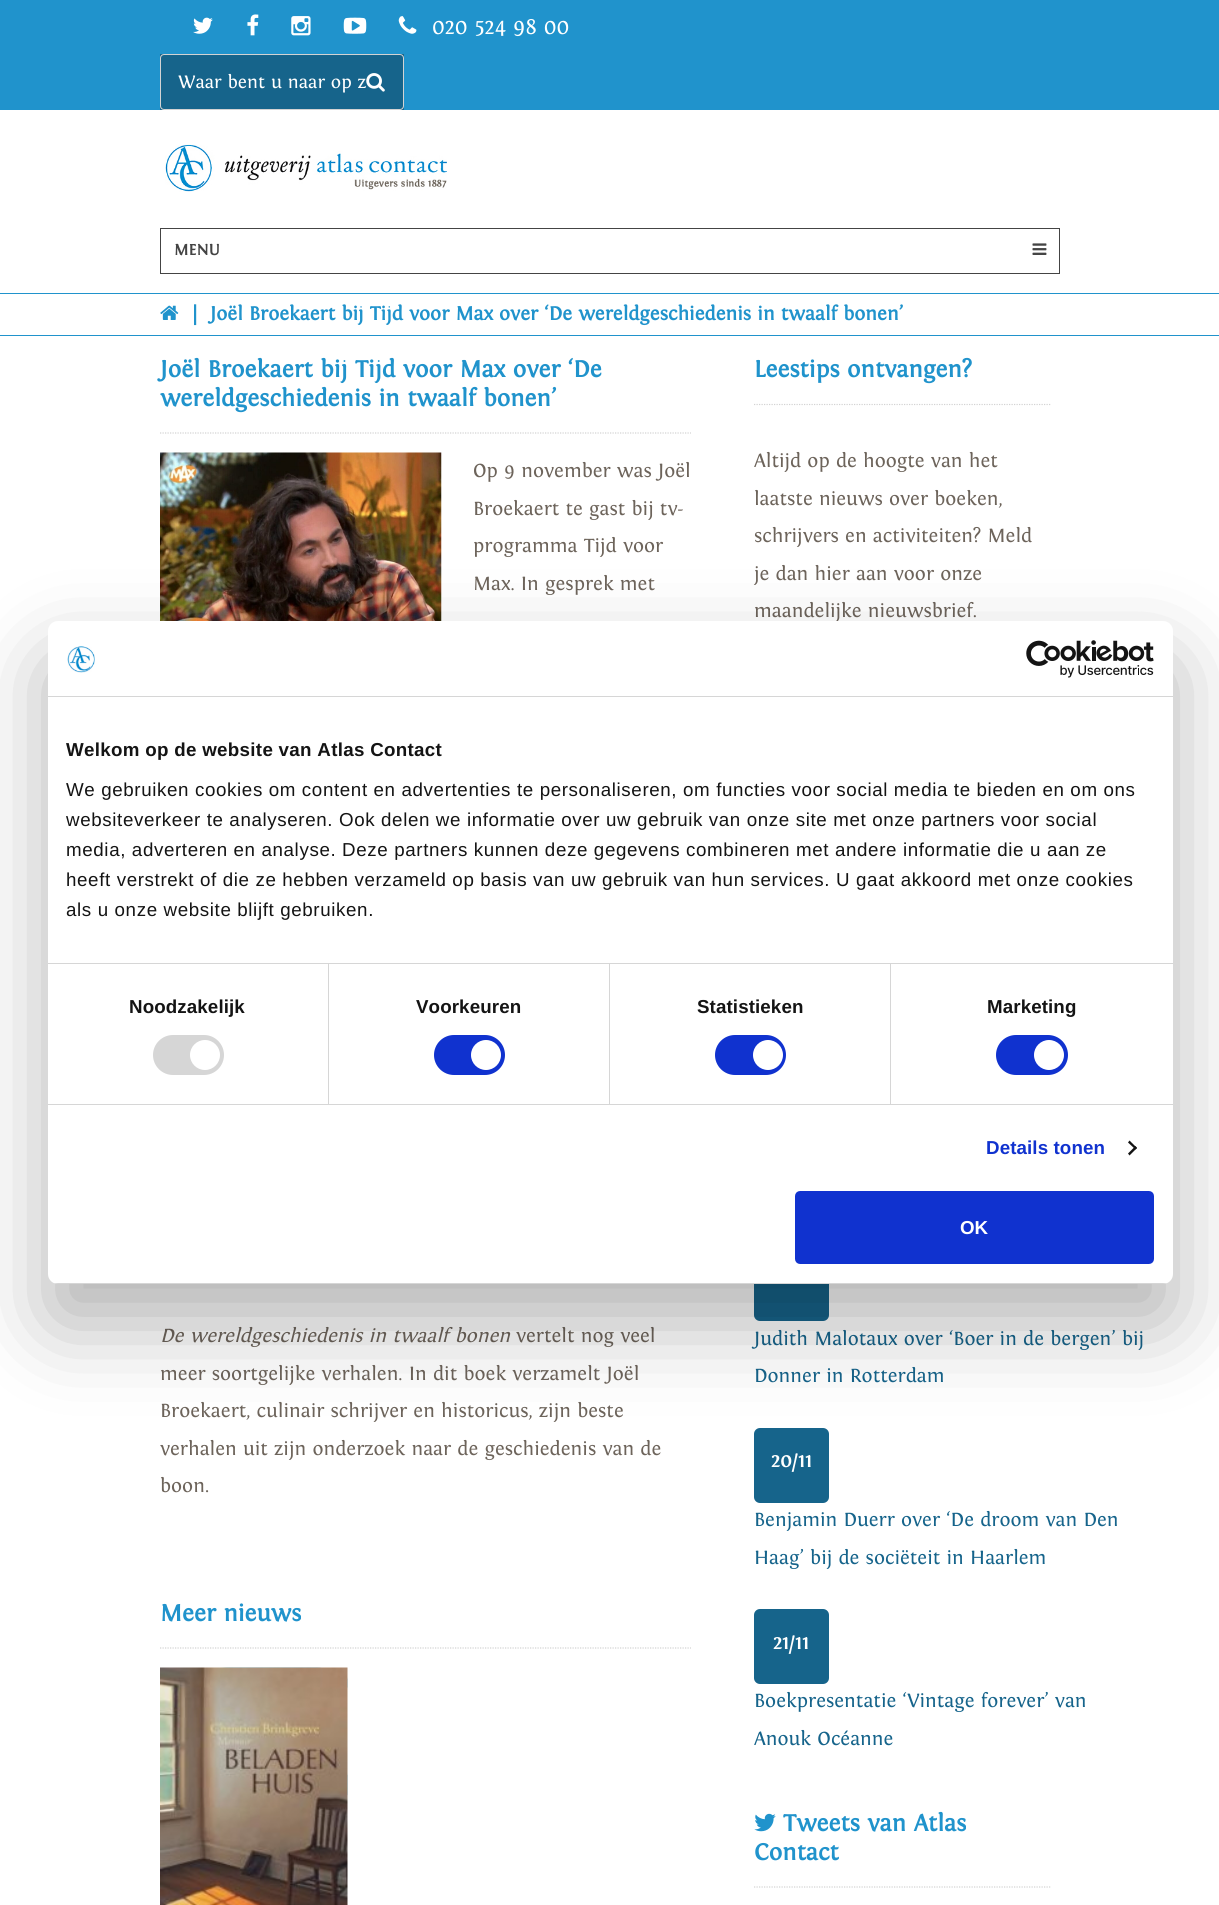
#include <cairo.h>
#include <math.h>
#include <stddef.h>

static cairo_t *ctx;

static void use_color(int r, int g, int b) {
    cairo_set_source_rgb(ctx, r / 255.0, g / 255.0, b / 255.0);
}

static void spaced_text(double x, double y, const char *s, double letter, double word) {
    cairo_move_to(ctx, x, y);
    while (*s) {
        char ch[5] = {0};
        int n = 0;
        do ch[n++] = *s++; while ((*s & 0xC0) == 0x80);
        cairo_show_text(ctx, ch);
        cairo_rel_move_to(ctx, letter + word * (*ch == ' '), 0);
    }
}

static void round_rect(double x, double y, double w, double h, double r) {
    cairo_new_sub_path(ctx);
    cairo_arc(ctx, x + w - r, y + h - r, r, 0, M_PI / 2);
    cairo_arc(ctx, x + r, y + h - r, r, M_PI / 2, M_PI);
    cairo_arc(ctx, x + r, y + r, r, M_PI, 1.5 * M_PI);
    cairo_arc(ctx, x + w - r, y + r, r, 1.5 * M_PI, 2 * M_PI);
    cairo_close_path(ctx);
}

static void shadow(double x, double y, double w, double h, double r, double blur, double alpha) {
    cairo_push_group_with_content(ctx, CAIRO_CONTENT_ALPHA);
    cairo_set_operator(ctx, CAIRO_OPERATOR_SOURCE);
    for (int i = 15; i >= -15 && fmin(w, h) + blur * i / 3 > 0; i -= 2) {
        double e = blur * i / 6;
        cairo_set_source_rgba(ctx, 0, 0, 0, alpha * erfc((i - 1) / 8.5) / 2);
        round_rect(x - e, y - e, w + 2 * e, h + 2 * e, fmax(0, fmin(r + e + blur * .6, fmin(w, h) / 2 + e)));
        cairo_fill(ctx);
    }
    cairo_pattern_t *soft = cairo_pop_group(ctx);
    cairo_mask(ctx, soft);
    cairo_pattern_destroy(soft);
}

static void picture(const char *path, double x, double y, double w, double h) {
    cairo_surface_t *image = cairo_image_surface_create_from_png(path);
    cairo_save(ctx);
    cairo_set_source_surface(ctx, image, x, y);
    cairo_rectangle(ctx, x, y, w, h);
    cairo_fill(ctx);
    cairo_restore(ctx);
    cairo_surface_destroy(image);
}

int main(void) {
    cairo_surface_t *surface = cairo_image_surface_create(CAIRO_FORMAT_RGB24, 1219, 1905);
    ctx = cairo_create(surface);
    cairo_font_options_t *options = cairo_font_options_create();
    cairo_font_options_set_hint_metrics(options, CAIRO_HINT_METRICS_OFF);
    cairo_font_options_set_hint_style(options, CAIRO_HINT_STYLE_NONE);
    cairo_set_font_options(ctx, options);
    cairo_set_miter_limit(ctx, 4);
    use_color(255, 255, 255);
    cairo_paint(ctx);
    use_color(32, 147, 204);
    cairo_rectangle(ctx, 0, 0, 1219, 110);
    cairo_fill(ctx);
    picture("img1.png", 193, 17, 20, 17);
    picture("img2.png", 247, 14, 12, 22);
    picture("img3.png", 291, 16, 20, 20);
    picture("img4.png", 343, 17, 24, 17);
    picture("img5.png", 398, 16, 19, 18);
    cairo_select_font_face(ctx, "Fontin", CAIRO_FONT_SLANT_NORMAL, CAIRO_FONT_WEIGHT_NORMAL);
    cairo_set_font_size(ctx, 22.5);
    use_color(255, 255, 255);
    cairo_move_to(ctx, 432, 34);
    cairo_show_text(ctx, "020 524 98 00");
    use_color(22, 100, 139);
    cairo_rectangle(ctx, 160, 54, 244, 56);
    cairo_fill(ctx);
    round_rect(160.5, 54.5, 243, 55, 3.5);
    use_color(211, 211, 211);
    cairo_set_line_width(ctx, 1);
    cairo_stroke(ctx);
    cairo_set_font_size(ctx, 18.75);
    use_color(255, 255, 255);
    cairo_move_to(ctx, 178, 88);
    cairo_show_text(ctx, "Waar bent u naar op z");
    picture("img6.png", 366, 73, 19, 19);
    picture("img7.png", 165, 144, 282, 48);
    cairo_rectangle(ctx, 160.5, 228.5, 899, 45);
    use_color(68, 68, 68);
    cairo_stroke(ctx);
    cairo_select_font_face(ctx, "Fontin", CAIRO_FONT_SLANT_NORMAL, CAIRO_FONT_WEIGHT_BOLD);
    cairo_set_font_size(ctx, 16);
    cairo_move_to(ctx, 174, 255);
    cairo_show_text(ctx, "MENU");
    picture("img8.png", 1032, 243, 15, 12);
    use_color(32, 147, 204);
    cairo_rectangle(ctx, 0, 293, 1219, 1);
    cairo_fill(ctx);
    cairo_rectangle(ctx, 0, 335, 1219, 1);
    cairo_fill(ctx);
    picture("img9.png", 160, 305, 19, 15);
    cairo_set_font_size(ctx, 20);
    cairo_move_to(ctx, 194, 320);
    cairo_show_text(ctx, "|");
    cairo_move_to(ctx, 210, 320);
    cairo_show_text(ctx, "Joël Broekaert bij Tijd voor Max over ‘De wereldgeschiedenis in twaalf bonen’");
    cairo_new_path(ctx);
    cairo_move_to(ctx, 160, 433);
    cairo_line_to(ctx, 691, 433);
    use_color(211, 211, 211);
    cairo_set_line_width(ctx, 1.2);
    cairo_set_dash(ctx, (double[]){1.25, 1.25}, 2, 0);
    cairo_stroke(ctx);
    cairo_set_font_size(ctx, 24.4);
    use_color(32, 147, 204);
    cairo_move_to(ctx, 160, 377);
    cairo_show_text(ctx, "Joël Broekaert bij Tijd voor Max over ‘De");
    cairo_move_to(ctx, 160, 406);
    cairo_show_text(ctx, "wereldgeschiedenis in twaalf bonen’");
    picture("img10.png", 160, 452, 282, 169);
    cairo_select_font_face(ctx, "Fontin", CAIRO_FONT_SLANT_NORMAL, CAIRO_FONT_WEIGHT_NORMAL);
    cairo_set_font_size(ctx, 20);
    use_color(109, 100, 91);
    cairo_move_to(ctx, 473, 477);
    cairo_show_text(ctx, "Op 9 november was Joël");
    cairo_move_to(ctx, 473, 515);
    cairo_show_text(ctx, "Broekaert te gast bij tv-");
    cairo_move_to(ctx, 473, 552);
    cairo_show_text(ctx, "programma Tijd voor");
    cairo_move_to(ctx, 473, 590);
    cairo_show_text(ctx, "Max. In gesprek met");
    cairo_select_font_face(ctx, "Fontin", CAIRO_FONT_SLANT_ITALIC, CAIRO_FONT_WEIGHT_NORMAL);
    cairo_move_to(ctx, 160, 1342);
    cairo_show_text(ctx, "De wereldgeschiedenis in twaalf bonen");
    cairo_select_font_face(ctx, "Fontin", CAIRO_FONT_SLANT_NORMAL, CAIRO_FONT_WEIGHT_NORMAL);
    cairo_move_to(ctx, 516, 1342);
    cairo_show_text(ctx, "vertelt nog veel");
    cairo_move_to(ctx, 160, 1380);
    cairo_show_text(ctx, "meer soortgelijke verhalen. In dit boek verzamelt Joël");
    cairo_move_to(ctx, 160, 1417);
    cairo_show_text(ctx, "Broekaert, culinair schrijver en historicus, zijn beste");
    cairo_move_to(ctx, 160, 1455);
    cairo_show_text(ctx, "verhalen uit zijn onderzoek naar de geschiedenis van de");
    cairo_move_to(ctx, 160, 1492);
    cairo_show_text(ctx, "boon.");
    cairo_new_path(ctx);
    cairo_move_to(ctx, 160, 1648);
    cairo_line_to(ctx, 691, 1648);
    use_color(211, 211, 211);
    cairo_stroke(ctx);
    cairo_select_font_face(ctx, "Fontin", CAIRO_FONT_SLANT_NORMAL, CAIRO_FONT_WEIGHT_BOLD);
    cairo_set_font_size(ctx, 24.4);
    use_color(32, 147, 204);
    cairo_move_to(ctx, 160, 1621);
    cairo_show_text(ctx, "Meer nieuws");
    picture("img11.png", 160, 1667, 188, 238);
    picture("img12.png", 160, 1667, 188, 238);
    cairo_new_path(ctx);
    cairo_move_to(ctx, 754, 404.5);
    cairo_line_to(ctx, 1051, 404.5);
    use_color(211, 211, 211);
    cairo_stroke(ctx);
    use_color(32, 147, 204);
    cairo_move_to(ctx, 754, 377);
    cairo_show_text(ctx, "Leestips ontvangen?");
    cairo_select_font_face(ctx, "Fontin", CAIRO_FONT_SLANT_NORMAL, CAIRO_FONT_WEIGHT_NORMAL);
    cairo_set_font_size(ctx, 20);
    use_color(109, 100, 91);
    cairo_move_to(ctx, 754, 467);
    cairo_show_text(ctx, "Altijd op de hoogte van het");
    cairo_move_to(ctx, 754, 505);
    cairo_show_text(ctx, "laatste nieuws over boeken,");
    cairo_move_to(ctx, 754, 542);
    cairo_show_text(ctx, "schrijvers en activiteiten? Meld");
    cairo_move_to(ctx, 754, 580);
    cairo_show_text(ctx, "je dan hier aan voor onze");
    cairo_move_to(ctx, 754, 617);
    cairo_show_text(ctx, "maandelijke nieuwsbrief.");
    use_color(22, 100, 139);
    round_rect(754, 1246, 75, 75, 6);
    cairo_fill(ctx);
    cairo_move_to(ctx, 754, 1345);
    cairo_show_text(ctx, "Judith Malotaux over ‘Boer in de bergen’ bij");
    cairo_move_to(ctx, 754, 1382);
    cairo_show_text(ctx, "Donner in Rotterdam");
    round_rect(754, 1428, 75, 75, 6);
    cairo_fill(ctx);
    cairo_select_font_face(ctx, "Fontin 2", CAIRO_FONT_SLANT_NORMAL, CAIRO_FONT_WEIGHT_BOLD);
    use_color(255, 255, 255);
    cairo_move_to(ctx, 771, 1467);
    cairo_show_text(ctx, "20/11");
    cairo_select_font_face(ctx, "Fontin", CAIRO_FONT_SLANT_NORMAL, CAIRO_FONT_WEIGHT_NORMAL);
    use_color(22, 100, 139);
    cairo_move_to(ctx, 754, 1526);
    cairo_show_text(ctx, "Benjamin Duerr over ‘De droom van Den");
    cairo_move_to(ctx, 754, 1564);
    cairo_show_text(ctx, "Haag’ bij de sociëteit in Haarlem");
    round_rect(754, 1609, 75, 75, 6);
    cairo_fill(ctx);
    cairo_select_font_face(ctx, "Fontin 2", CAIRO_FONT_SLANT_NORMAL, CAIRO_FONT_WEIGHT_BOLD);
    use_color(255, 255, 255);
    cairo_move_to(ctx, 773, 1649);
    cairo_show_text(ctx, "21/11");
    cairo_select_font_face(ctx, "Fontin", CAIRO_FONT_SLANT_NORMAL, CAIRO_FONT_WEIGHT_NORMAL);
    use_color(22, 100, 139);
    cairo_move_to(ctx, 754, 1707);
    cairo_show_text(ctx, "Boekpresentatie ‘Vintage forever’ van");
    cairo_move_to(ctx, 754, 1745);
    cairo_show_text(ctx, "Anouk Océanne");
    cairo_new_path(ctx);
    cairo_move_to(ctx, 754, 1887);
    cairo_line_to(ctx, 1051, 1887);
    use_color(211, 211, 211);
    cairo_stroke(ctx);
    picture("img13.png", 754, 1813, 22, 19);
    cairo_select_font_face(ctx, "Fontin", CAIRO_FONT_SLANT_NORMAL, CAIRO_FONT_WEIGHT_BOLD);
    cairo_set_font_size(ctx, 24.4);
    use_color(32, 147, 204);
    cairo_move_to(ctx, 783, 1831);
    cairo_show_text(ctx, "Tweets van Atlas");
    cairo_move_to(ctx, 754, 1860);
    cairo_show_text(ctx, "Contact");
    use_color(0, 0, 0);
    shadow(48, 661, 1125, 663, 10, 42.5, 0.3);
    use_color(255, 255, 255);
    round_rect(48, 621, 1125, 663, 10);
    cairo_fill(ctx);
    use_color(214, 214, 214);
    cairo_rectangle(ctx, 48, 696, 1125, 1);
    cairo_fill(ctx);
    picture("img14.png", 67, 646, 28, 27);
    picture("img15.png", 1026, 640, 128, 38);
    cairo_rectangle(ctx, 48, 963, 1125, 1);
    cairo_fill(ctx);
    cairo_select_font_face(ctx, "Liberation Sans", CAIRO_FONT_SLANT_NORMAL, CAIRO_FONT_WEIGHT_BOLD);
    cairo_set_font_size(ctx, 18.75);
    use_color(20, 20, 20);
    spaced_text(66, 756, "Welkom op de website van Atlas Contact", 0.3, 0);
    cairo_select_font_face(ctx, "Liberation Sans", CAIRO_FONT_SLANT_NORMAL, CAIRO_FONT_WEIGHT_NORMAL);
    spaced_text(66, 796, "We gebruiken cookies om content en advertenties te personaliseren, om functies voor social media te bieden en om ons", 0.62, 0);
    spaced_text(66, 826, "websiteverkeer te analyseren. Ook delen we informatie over uw gebruik van onze site met onze partners voor social", 0.62, 0);
    spaced_text(66, 856, "media, adverteren en analyse. Deze partners kunnen deze gegevens combineren met andere informatie die u aan ze", 0.62, 0);
    spaced_text(66, 886, "heeft verstrekt of die ze hebben verzameld op basis van uw gebruik van hun services. U gaat akkoord met onze cookies", 0.62, 0);
    spaced_text(66, 916, "als u onze website blijft gebruiken.", 0.62, 0);
    use_color(214, 214, 214);
    cairo_rectangle(ctx, 48, 1104, 1125, 1);
    cairo_fill(ctx);
    cairo_rectangle(ctx, 328, 964, 1, 140);
    cairo_fill(ctx);
    cairo_select_font_face(ctx, "Liberation Sans", CAIRO_FONT_SLANT_NORMAL, CAIRO_FONT_WEIGHT_BOLD);
    use_color(20, 20, 20);
    spaced_text(129, 1013, "Noodzakelijk", 0.1, 0);
    use_color(214, 214, 214);
    round_rect(153, 1035, 71, 40, 20);
    cairo_fill(ctx);
    use_color(255, 255, 255);
    cairo_arc(ctx, 205, 1055, 15, 0, 2 * M_PI);
    cairo_fill(ctx);
    use_color(214, 214, 214);
    cairo_rectangle(ctx, 609, 964, 1, 140);
    cairo_fill(ctx);
    use_color(20, 20, 20);
    spaced_text(416, 1013, "Voorkeuren", 0.1, 0);
    use_color(16, 50, 207);
    round_rect(434, 1035, 71, 40, 20);
    cairo_fill(ctx);
    use_color(255, 255, 255);
    cairo_arc(ctx, 486, 1055, 15, 0, 2 * M_PI);
    cairo_fill(ctx);
    use_color(214, 214, 214);
    cairo_rectangle(ctx, 890, 964, 1, 140);
    cairo_fill(ctx);
    use_color(20, 20, 20);
    spaced_text(697, 1013, "Statistieken", 0.1, 0);
    use_color(16, 50, 207);
    round_rect(715, 1035, 71, 40, 20);
    cairo_fill(ctx);
    use_color(255, 255, 255);
    cairo_arc(ctx, 768, 1055, 15, 0, 2 * M_PI);
    cairo_fill(ctx);
    use_color(20, 20, 20);
    spaced_text(987, 1013, "Marketing", 0.1, 0);
    use_color(16, 50, 207);
    round_rect(996, 1035, 72, 40, 20);
    cairo_fill(ctx);
    use_color(255, 255, 255);
    cairo_arc(ctx, 1049, 1055, 15, 0, 2 * M_PI);
    cairo_fill(ctx);
    use_color(16, 50, 207);
    spaced_text(986, 1154, "Details tonen", 0.1, 0);
    use_color(20, 20, 20);
    cairo_new_path(ctx);
    cairo_move_to(ctx, 1129.5, 1140.5);
    cairo_line_to(ctx, 1137, 1148);
    cairo_line_to(ctx, 1135.5, 1149.5);
    cairo_line_to(ctx, 1128, 1142.5);
    cairo_close_path(ctx);
    cairo_fill(ctx);
    cairo_new_path(ctx);
    cairo_move_to(ctx, 1135.5, 1146);
    cairo_line_to(ctx, 1137, 1148);
    cairo_line_to(ctx, 1129.5, 1155.5);
    cairo_line_to(ctx, 1128, 1153.5);
    cairo_close_path(ctx);
    cairo_fill(ctx);
    cairo_save(ctx);
    round_rect(48, 621, 1125, 663, 10);
    cairo_clip(ctx);
    use_color(214, 214, 214);
    cairo_rectangle(ctx, 48, 1283, 1125, 1);
    cairo_fill(ctx);
    cairo_restore(ctx);
    use_color(16, 50, 207);
    round_rect(796.5, 1192.5, 356, 70, 3.5);
    cairo_fill_preserve(ctx);
    cairo_set_line_width(ctx, 3);
    cairo_set_dash(ctx, NULL, 0, 0);
    cairo_stroke(ctx);
    use_color(255, 255, 255);
    cairo_move_to(ctx, 960, 1234);
    cairo_show_text(ctx, "OK");
    cairo_surface_write_to_png(surface, "result.png");
    cairo_font_options_destroy(options);
    cairo_destroy(ctx);
    cairo_surface_destroy(surface);
    return 0;
}
